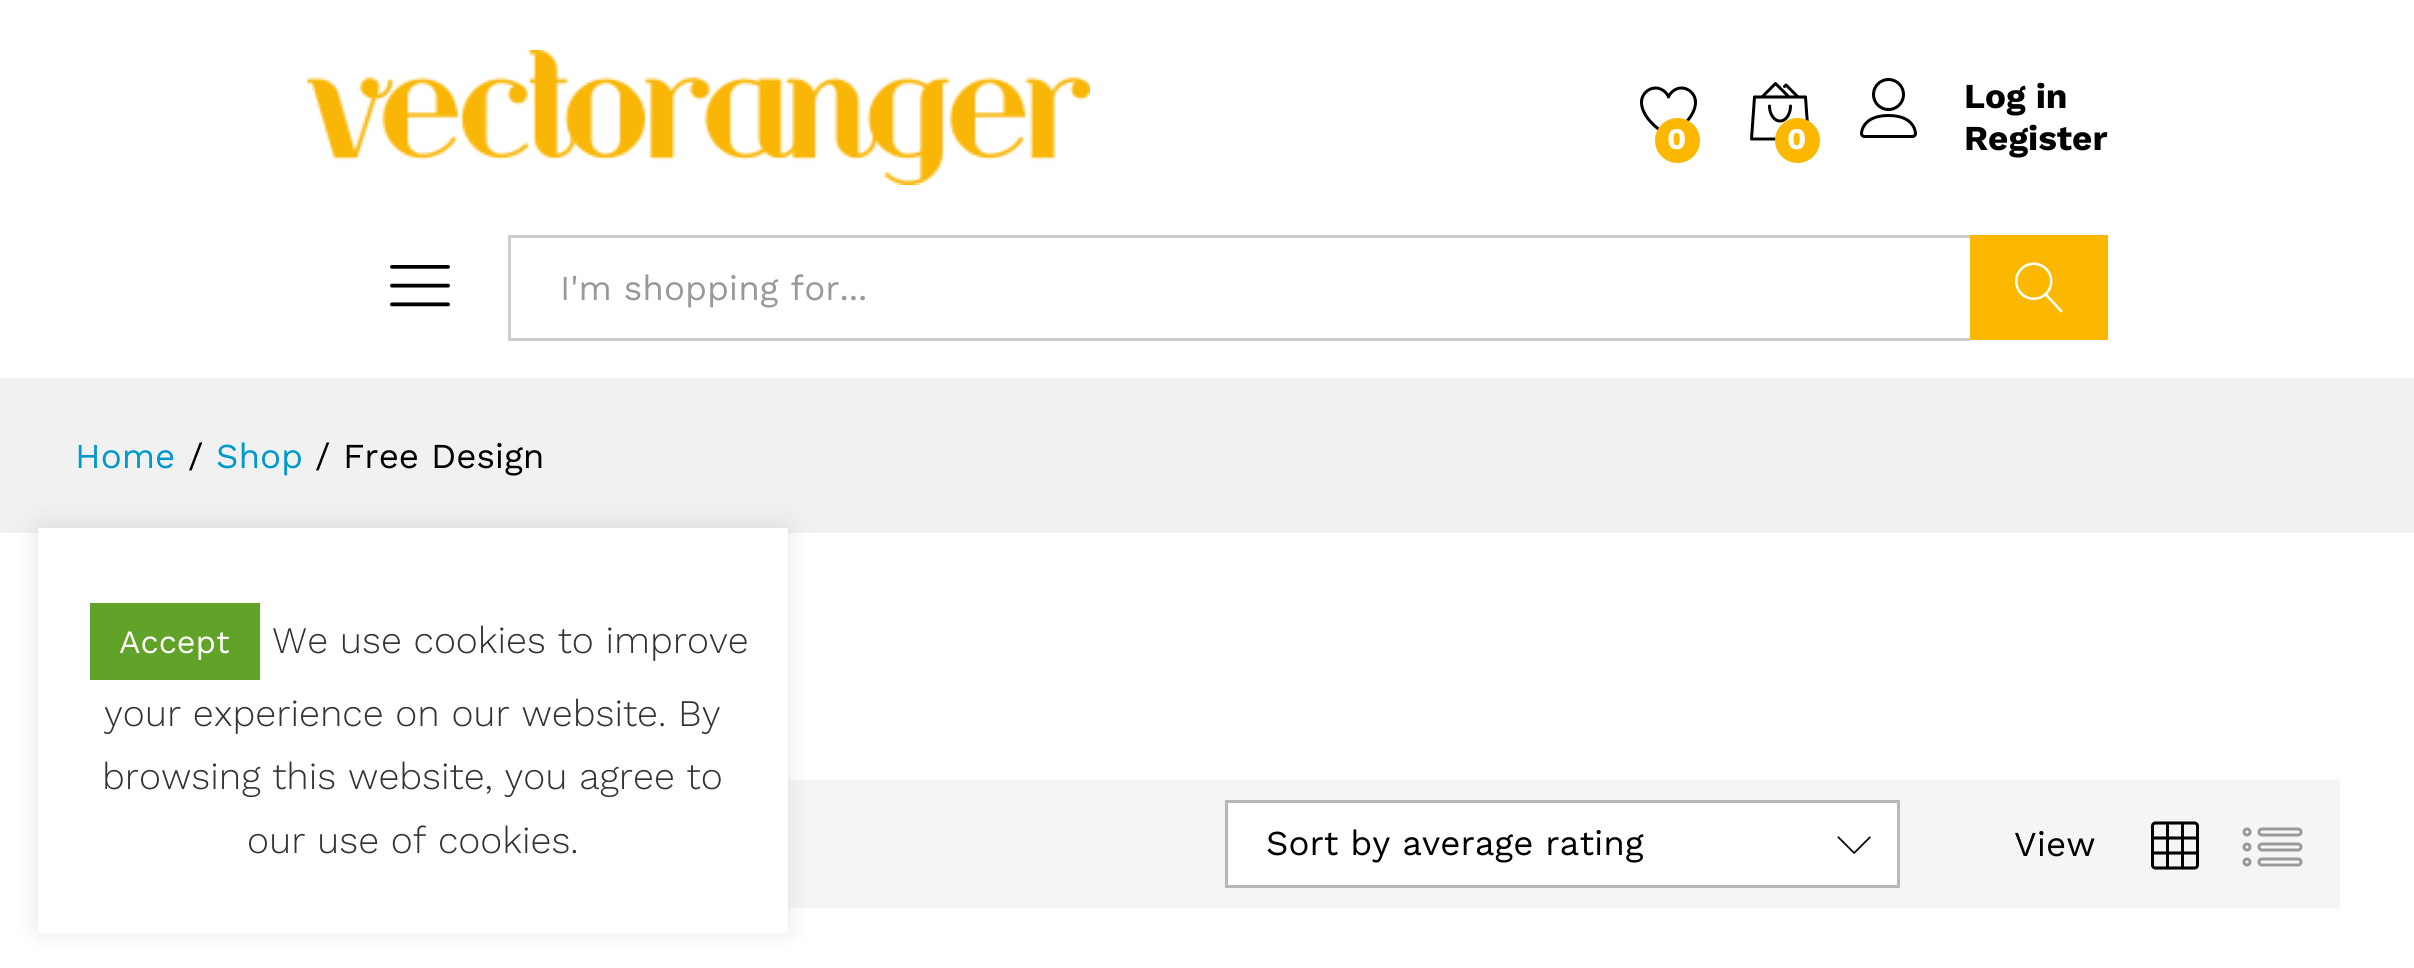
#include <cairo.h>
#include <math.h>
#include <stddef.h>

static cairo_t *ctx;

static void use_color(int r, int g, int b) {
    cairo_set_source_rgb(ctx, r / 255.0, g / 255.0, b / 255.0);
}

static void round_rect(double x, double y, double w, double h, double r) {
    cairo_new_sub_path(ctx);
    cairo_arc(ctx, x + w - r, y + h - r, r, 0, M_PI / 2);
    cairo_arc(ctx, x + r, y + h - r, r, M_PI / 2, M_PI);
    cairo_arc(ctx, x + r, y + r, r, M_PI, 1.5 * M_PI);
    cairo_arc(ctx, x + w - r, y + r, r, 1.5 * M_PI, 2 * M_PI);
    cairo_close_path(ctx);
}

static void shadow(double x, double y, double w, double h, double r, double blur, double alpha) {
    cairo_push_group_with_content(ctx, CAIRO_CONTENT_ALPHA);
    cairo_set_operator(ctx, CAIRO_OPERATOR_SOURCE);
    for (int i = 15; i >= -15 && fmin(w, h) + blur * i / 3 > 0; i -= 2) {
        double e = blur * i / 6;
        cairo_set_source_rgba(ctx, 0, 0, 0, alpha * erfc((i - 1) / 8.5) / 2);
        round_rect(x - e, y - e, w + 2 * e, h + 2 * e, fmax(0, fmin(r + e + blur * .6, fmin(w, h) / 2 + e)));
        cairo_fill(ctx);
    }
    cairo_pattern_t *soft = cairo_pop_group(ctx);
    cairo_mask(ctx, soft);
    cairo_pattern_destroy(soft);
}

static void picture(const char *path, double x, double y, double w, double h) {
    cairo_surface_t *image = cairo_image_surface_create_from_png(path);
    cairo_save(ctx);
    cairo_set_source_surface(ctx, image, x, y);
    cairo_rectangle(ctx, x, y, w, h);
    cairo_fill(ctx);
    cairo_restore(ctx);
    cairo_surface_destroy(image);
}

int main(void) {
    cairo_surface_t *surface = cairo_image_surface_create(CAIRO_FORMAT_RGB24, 2414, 968);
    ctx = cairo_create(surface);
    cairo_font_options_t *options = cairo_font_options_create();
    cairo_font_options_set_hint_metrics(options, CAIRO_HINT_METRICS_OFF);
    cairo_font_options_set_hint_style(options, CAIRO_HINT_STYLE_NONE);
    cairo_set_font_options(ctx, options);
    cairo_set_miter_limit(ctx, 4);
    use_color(255, 255, 255);
    cairo_paint(ctx);
    picture("img1.png", 307, 50, 783, 135);
    picture("img2.png", 1640, 86, 57, 45);
    use_color(252, 184, 0);
    cairo_arc(ctx, 1677.5, 140.5, 22.5, 0, 2 * M_PI);
    cairo_fill(ctx);
    cairo_select_font_face(ctx, "Work Sans", CAIRO_FONT_SLANT_NORMAL, CAIRO_FONT_WEIGHT_BOLD);
    cairo_set_font_size(ctx, 30);
    use_color(255, 255, 255);
    cairo_move_to(ctx, 1667, 149);
    cairo_show_text(ctx, "0");
    picture("img3.png", 1750, 82, 59, 59);
    use_color(252, 184, 0);
    cairo_arc(ctx, 1797.5, 140.5, 22.5, 0, 2 * M_PI);
    cairo_fill(ctx);
    use_color(255, 255, 255);
    cairo_move_to(ctx, 1787, 149);
    cairo_show_text(ctx, "0");
    picture("img4.png", 1860, 78, 57, 60);
    cairo_set_font_size(ctx, 35);
    use_color(0, 0, 0);
    cairo_move_to(ctx, 1964, 108);
    cairo_show_text(ctx, "Log in");
    cairo_move_to(ctx, 1964, 150);
    cairo_show_text(ctx, "Register");
    picture("img5.png", 390, 265, 60, 42);
    use_color(204, 204, 204);
    cairo_rectangle(ctx, 508, 235, 1462, 3);
    cairo_fill(ctx);
    cairo_rectangle(ctx, 508, 338, 1462, 3);
    cairo_fill(ctx);
    cairo_rectangle(ctx, 508, 235, 3, 105);
    cairo_fill(ctx);
    cairo_select_font_face(ctx, "Work Sans", CAIRO_FONT_SLANT_NORMAL, CAIRO_FONT_WEIGHT_NORMAL);
    use_color(153, 153, 153);
    cairo_move_to(ctx, 560, 300);
    cairo_show_text(ctx, "I'm shopping for...");
    use_color(252, 184, 0);
    cairo_rectangle(ctx, 1970, 235, 138, 105);
    cairo_fill(ctx);
    picture("img6.png", 2015, 262, 48, 51);
    use_color(241, 241, 241);
    cairo_rectangle(ctx, 0, 378, 2414, 155);
    cairo_fill(ctx);
    use_color(0, 153, 204);
    cairo_move_to(ctx, 75, 468);
    cairo_show_text(ctx, "Home");
    use_color(0, 0, 0);
    cairo_move_to(ctx, 188, 468);
    cairo_show_text(ctx, "/");
    use_color(0, 153, 204);
    cairo_move_to(ctx, 216, 468);
    cairo_show_text(ctx, "Shop");
    use_color(0, 0, 0);
    cairo_move_to(ctx, 315, 468);
    cairo_show_text(ctx, "/");
    cairo_move_to(ctx, 343, 468);
    cairo_show_text(ctx, "Free Design");
    use_color(245, 245, 245);
    cairo_rectangle(ctx, 788, 780, 1552, 128);
    cairo_fill(ctx);
    use_color(255, 255, 255);
    cairo_rectangle(ctx, 1226.5, 801.5, 672, 85);
    cairo_fill_preserve(ctx);
    use_color(184, 184, 184);
    cairo_set_line_width(ctx, 3);
    cairo_stroke(ctx);
    use_color(0, 0, 0);
    cairo_move_to(ctx, 1266, 855);
    cairo_show_text(ctx, "Sort by average rating");
    picture("img7.png", 1837, 836, 34, 18);
    cairo_move_to(ctx, 2014, 856);
    cairo_show_text(ctx, "View");
    picture("img8.png", 2151, 821, 48, 49);
    picture("img9.png", 2242, 827, 61, 40);
    use_color(172, 171, 171);
    shadow(38, 525, 750, 405, 0, 12.5, 0.3);
    use_color(255, 255, 255);
    cairo_rectangle(ctx, 38, 528, 750, 405);
    cairo_fill(ctx);
    use_color(97, 162, 41);
    cairo_rectangle(ctx, 90, 603, 170, 77);
    cairo_fill(ctx);
    cairo_set_font_size(ctx, 32.5);
    use_color(255, 255, 255);
    cairo_move_to(ctx, 119, 653);
    cairo_show_text(ctx, "Accept");
    cairo_select_font_face(ctx, "Work Sans Light", CAIRO_FONT_SLANT_NORMAL, CAIRO_FONT_WEIGHT_NORMAL);
    cairo_set_font_size(ctx, 37.5);
    use_color(51, 51, 51);
    cairo_move_to(ctx, 272, 653);
    cairo_show_text(ctx, "We use cookies to improve");
    cairo_move_to(ctx, 104, 726);
    cairo_show_text(ctx, "your experience on our website. By");
    cairo_move_to(ctx, 102, 789);
    cairo_show_text(ctx, "browsing this website, you agree to");
    cairo_move_to(ctx, 247, 853);
    cairo_show_text(ctx, "our use of cookies.");
    cairo_surface_write_to_png(surface, "result.png");
    cairo_font_options_destroy(options);
    cairo_destroy(ctx);
    cairo_surface_destroy(surface);
    return 0;
}
